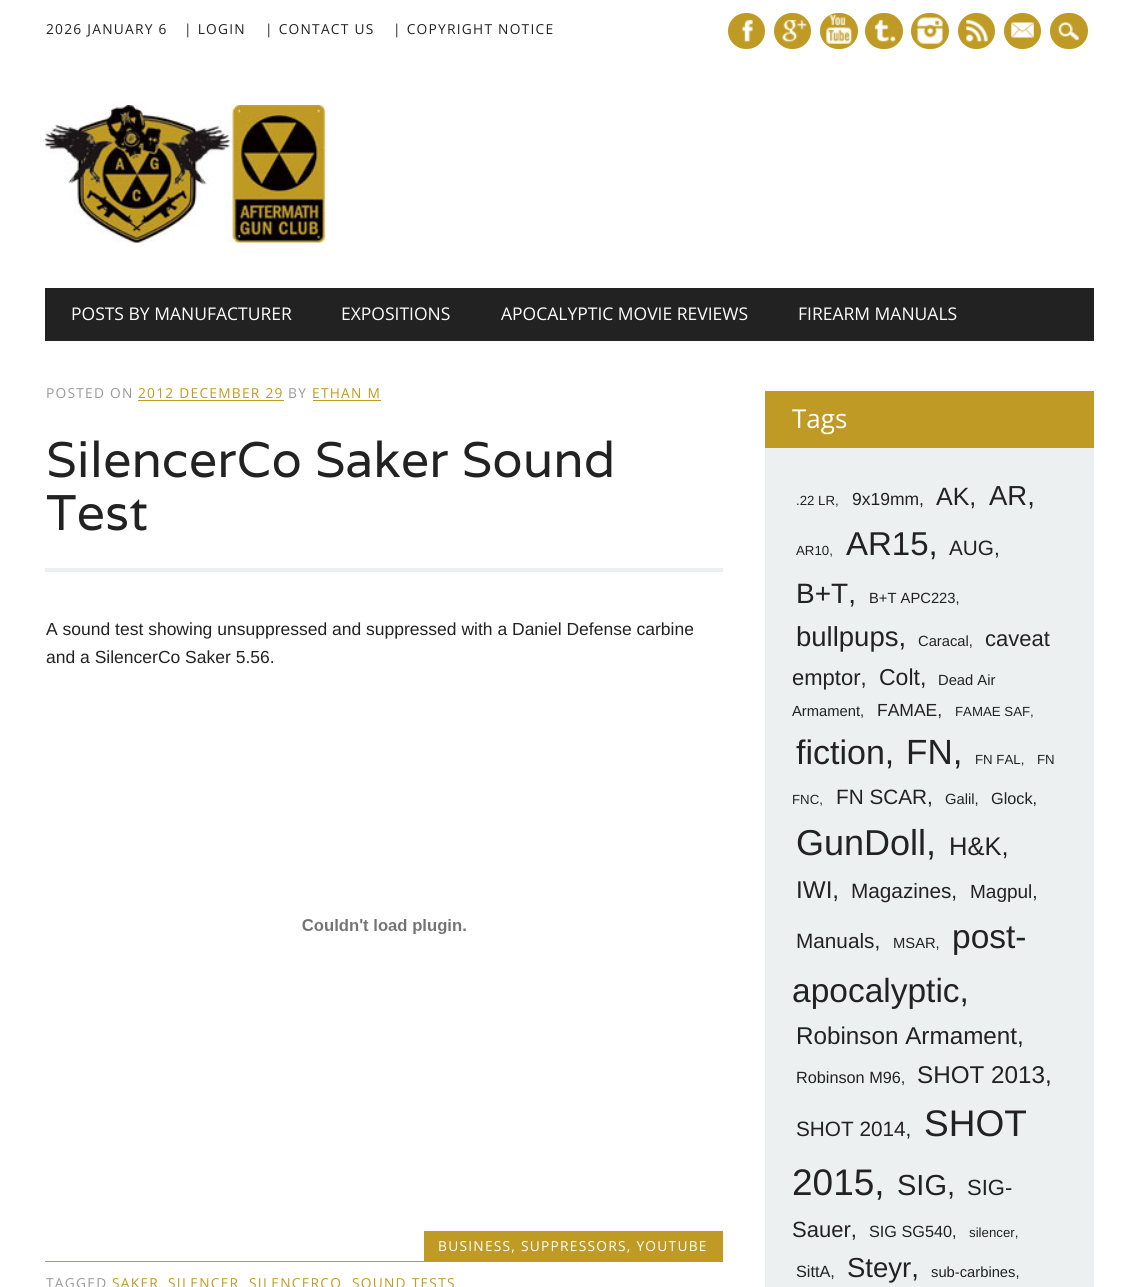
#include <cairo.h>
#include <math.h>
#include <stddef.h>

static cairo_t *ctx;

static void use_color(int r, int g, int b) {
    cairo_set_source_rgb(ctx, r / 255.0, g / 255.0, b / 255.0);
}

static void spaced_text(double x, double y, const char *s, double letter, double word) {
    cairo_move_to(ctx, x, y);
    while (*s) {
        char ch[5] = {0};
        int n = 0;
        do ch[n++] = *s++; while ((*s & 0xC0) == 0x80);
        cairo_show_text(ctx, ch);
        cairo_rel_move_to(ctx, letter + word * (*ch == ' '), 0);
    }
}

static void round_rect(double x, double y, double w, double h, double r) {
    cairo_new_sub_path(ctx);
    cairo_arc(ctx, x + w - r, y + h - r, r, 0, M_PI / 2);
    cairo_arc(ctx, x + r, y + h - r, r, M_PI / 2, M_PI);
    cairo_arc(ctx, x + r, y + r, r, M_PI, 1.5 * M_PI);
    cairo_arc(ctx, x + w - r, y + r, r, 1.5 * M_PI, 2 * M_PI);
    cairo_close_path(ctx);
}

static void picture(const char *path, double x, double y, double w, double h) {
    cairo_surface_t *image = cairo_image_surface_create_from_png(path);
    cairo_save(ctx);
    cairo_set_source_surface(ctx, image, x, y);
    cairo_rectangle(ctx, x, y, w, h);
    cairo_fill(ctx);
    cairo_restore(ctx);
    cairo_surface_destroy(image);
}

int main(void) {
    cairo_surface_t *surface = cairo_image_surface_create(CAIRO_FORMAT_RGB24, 1138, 1287);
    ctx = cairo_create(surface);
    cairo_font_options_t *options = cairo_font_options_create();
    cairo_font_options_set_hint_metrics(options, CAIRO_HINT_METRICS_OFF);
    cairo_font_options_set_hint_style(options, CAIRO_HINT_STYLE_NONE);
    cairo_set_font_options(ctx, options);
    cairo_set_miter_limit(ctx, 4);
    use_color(255, 255, 255);
    cairo_paint(ctx);
    cairo_select_font_face(ctx, "Open Sans", CAIRO_FONT_SLANT_NORMAL, CAIRO_FONT_WEIGHT_NORMAL);
    cairo_set_font_size(ctx, 13.75);
    use_color(34, 34, 34);
    spaced_text(46, 34, "2026 JANUARY 6", 1.25, 0);
    spaced_text(184, 34, "| LOGIN", 1.25, 0);
    spaced_text(265, 34, "| CONTACT US", 1.25, 0);
    spaced_text(393, 34, "| COPYRIGHT NOTICE", 1.25, 0);
    use_color(191, 154, 36);
    round_rect(728, 13, 37, 36, 18);
    cairo_fill(ctx);
    picture("img1.png", 742, 19, 11, 23);
    round_rect(774, 13, 37, 36, 18);
    cairo_fill(ctx);
    picture("img2.png", 782, 19, 25, 23);
    round_rect(820, 13, 38, 36, 18);
    cairo_fill(ctx);
    picture("img3.png", 826, 14, 26, 30);
    round_rect(865, 13, 38, 36, 18);
    cairo_fill(ctx);
    picture("img4.png", 874, 19, 22, 23);
    round_rect(911, 13, 38, 36, 18);
    cairo_fill(ctx);
    picture("img5.png", 917, 17, 26, 27);
    round_rect(958, 13, 37, 36, 18);
    cairo_fill(ctx);
    picture("img6.png", 966, 19, 22, 23);
    round_rect(1004, 13, 37, 36, 18);
    cairo_fill(ctx);
    picture("img7.png", 1011, 22, 23, 16);
    round_rect(1050, 13, 38, 36, 18);
    cairo_fill(ctx);
    picture("img8.png", 1058, 22, 21, 19);
    picture("img9.png", 45, 105, 281, 138);
    use_color(34, 34, 34);
    cairo_rectangle(ctx, 45, 288, 1049, 53);
    cairo_fill(ctx);
    cairo_set_font_size(ctx, 17.5);
    use_color(255, 255, 255);
    cairo_move_to(ctx, 71, 320);
    cairo_show_text(ctx, "POSTS BY MANUFACTURER");
    cairo_move_to(ctx, 341, 320);
    cairo_show_text(ctx, "EXPOSITIONS");
    cairo_move_to(ctx, 501, 320);
    cairo_show_text(ctx, "APOCALYPTIC MOVIE REVIEWS");
    cairo_move_to(ctx, 798, 320);
    cairo_show_text(ctx, "FIREARM MANUALS");
    cairo_set_font_size(ctx, 13.75);
    use_color(153, 153, 153);
    spaced_text(46, 398, "POSTED ON", 1.25, 0);
    use_color(191, 154, 36);
    spaced_text(138, 398, "2012 DECEMBER 29", 1.25, 0);
    cairo_rectangle(ctx, 138, 400, 146, 1);
    cairo_fill(ctx);
    use_color(153, 153, 153);
    spaced_text(288, 398, "BY", 1.25, 0);
    use_color(191, 154, 36);
    spaced_text(312, 398, "ETHAN M", 1.25, 0);
    cairo_rectangle(ctx, 313, 400, 68, 1);
    cairo_fill(ctx);
    use_color(236, 240, 241);
    cairo_rectangle(ctx, 45, 568, 678, 4);
    cairo_fill(ctx);
    cairo_select_font_face(ctx, "Varela", CAIRO_FONT_SLANT_NORMAL, CAIRO_FONT_WEIGHT_NORMAL);
    cairo_set_font_size(ctx, 50);
    use_color(34, 34, 34);
    cairo_move_to(ctx, 46, 477);
    cairo_show_text(ctx, "SilencerCo Saker Sound");
    cairo_move_to(ctx, 46, 530);
    cairo_show_text(ctx, "Test");
    cairo_select_font_face(ctx, "Liberation Sans", CAIRO_FONT_SLANT_NORMAL, CAIRO_FONT_WEIGHT_NORMAL);
    cairo_set_font_size(ctx, 17.5);
    cairo_move_to(ctx, 46, 635);
    cairo_show_text(ctx, "A sound test showing unsuppressed and suppressed with a Daniel Defense carbine");
    cairo_move_to(ctx, 46, 663);
    cairo_show_text(ctx, "and a SilencerCo Saker 5.56.");
    picture("img10.png", 302, 919, 164, 15);
    use_color(191, 154, 36);
    cairo_rectangle(ctx, 424, 1231, 299, 30);
    cairo_fill(ctx);
    cairo_select_font_face(ctx, "Open Sans", CAIRO_FONT_SLANT_NORMAL, CAIRO_FONT_WEIGHT_NORMAL);
    cairo_set_font_size(ctx, 13.75);
    use_color(255, 255, 255);
    spaced_text(438, 1251, "BUSINESS, SUPPRESSORS, YOUTUBE", 1.25, 0);
    use_color(191, 154, 36);
    cairo_rectangle(ctx, 45, 1261, 678, 1);
    cairo_fill(ctx);
    use_color(153, 153, 153);
    spaced_text(46, 1288, "TAGGED", 1.25, 0);
    use_color(191, 154, 36);
    spaced_text(112, 1288, "SAKER", 1.25, 0);
    spaced_text(168, 1288, "SILENCER", 1.25, 0);
    spaced_text(249, 1288, "SILENCERCO", 1.25, 0);
    spaced_text(352, 1288, "SOUND TESTS", 1.25, 0);
    use_color(236, 240, 241);
    cairo_rectangle(ctx, 765, 448, 329, 839);
    cairo_fill(ctx);
    use_color(191, 154, 36);
    cairo_rectangle(ctx, 765, 391, 329, 57);
    cairo_fill(ctx);
    cairo_set_font_size(ctx, 26);
    use_color(255, 255, 255);
    cairo_move_to(ctx, 792, 428);
    cairo_show_text(ctx, "Tags");
    cairo_select_font_face(ctx, "Liberation Sans", CAIRO_FONT_SLANT_NORMAL, CAIRO_FONT_WEIGHT_NORMAL);
    cairo_set_font_size(ctx, 13.25);
    use_color(34, 34, 34);
    cairo_move_to(ctx, 796, 505);
    cairo_show_text(ctx, ".22 LR,");
    cairo_set_font_size(ctx, 17.5);
    cairo_move_to(ctx, 852, 505);
    cairo_show_text(ctx, "9x19mm,");
    cairo_set_font_size(ctx, 25);
    cairo_move_to(ctx, 936, 505);
    cairo_show_text(ctx, "AK,");
    cairo_set_font_size(ctx, 27.5);
    cairo_move_to(ctx, 989, 505);
    cairo_show_text(ctx, "AR,");
    cairo_set_font_size(ctx, 13.25);
    cairo_move_to(ctx, 796, 555);
    cairo_show_text(ctx, "AR10,");
    cairo_set_font_size(ctx, 33);
    cairo_move_to(ctx, 846, 555);
    cairo_show_text(ctx, "AR15,");
    cairo_set_font_size(ctx, 20.75);
    cairo_move_to(ctx, 949, 555);
    cairo_show_text(ctx, "AUG,");
    cairo_set_font_size(ctx, 28);
    cairo_move_to(ctx, 796, 603);
    cairo_show_text(ctx, "B+T,");
    cairo_set_font_size(ctx, 14.75);
    cairo_move_to(ctx, 869, 603);
    cairo_show_text(ctx, "B+T APC223,");
    cairo_set_font_size(ctx, 27.5);
    cairo_move_to(ctx, 796, 646);
    cairo_show_text(ctx, "bullpups,");
    cairo_set_font_size(ctx, 14.75);
    cairo_move_to(ctx, 918, 646);
    cairo_show_text(ctx, "Caracal,");
    cairo_set_font_size(ctx, 22);
    cairo_move_to(ctx, 985, 646);
    cairo_show_text(ctx, "caveat");
    cairo_move_to(ctx, 792, 685);
    cairo_show_text(ctx, "emptor,");
    cairo_set_font_size(ctx, 23);
    cairo_move_to(ctx, 879, 685);
    cairo_show_text(ctx, "Colt,");
    cairo_set_font_size(ctx, 14.75);
    cairo_move_to(ctx, 938, 685);
    cairo_show_text(ctx, "Dead Air");
    cairo_move_to(ctx, 792, 716);
    cairo_show_text(ctx, "Armament,");
    cairo_set_font_size(ctx, 17.5);
    cairo_move_to(ctx, 877, 716);
    cairo_show_text(ctx, "FAMAE,");
    cairo_set_font_size(ctx, 13.25);
    cairo_move_to(ctx, 955, 716);
    cairo_show_text(ctx, "FAMAE SAF,");
    cairo_set_font_size(ctx, 34);
    cairo_move_to(ctx, 796, 764);
    cairo_show_text(ctx, "fiction,");
    cairo_set_font_size(ctx, 35);
    cairo_move_to(ctx, 906, 764);
    cairo_show_text(ctx, "FN,");
    cairo_set_font_size(ctx, 13.25);
    cairo_move_to(ctx, 975, 764);
    cairo_show_text(ctx, "FN FAL,");
    cairo_move_to(ctx, 1037, 764);
    cairo_show_text(ctx, "FN");
    cairo_move_to(ctx, 792, 804);
    cairo_show_text(ctx, "FNC,");
    cairo_set_font_size(ctx, 20.75);
    cairo_move_to(ctx, 836, 804);
    cairo_show_text(ctx, "FN SCAR,");
    cairo_set_font_size(ctx, 14.75);
    cairo_move_to(ctx, 945, 804);
    cairo_show_text(ctx, "Galil,");
    cairo_set_font_size(ctx, 16.25);
    cairo_move_to(ctx, 991, 804);
    cairo_show_text(ctx, "Glock,");
    cairo_set_font_size(ctx, 36);
    cairo_move_to(ctx, 796, 855);
    cairo_show_text(ctx, "GunDoll,");
    cairo_set_font_size(ctx, 25.5);
    cairo_move_to(ctx, 949, 855);
    cairo_show_text(ctx, "H&K,");
    cairo_set_font_size(ctx, 24.25);
    cairo_move_to(ctx, 796, 898);
    cairo_show_text(ctx, "IWI,");
    cairo_set_font_size(ctx, 20.75);
    cairo_move_to(ctx, 851, 898);
    cairo_show_text(ctx, "Magazines,");
    cairo_set_font_size(ctx, 19);
    cairo_move_to(ctx, 970, 898);
    cairo_show_text(ctx, "Magpul,");
    cairo_set_font_size(ctx, 20.75);
    cairo_move_to(ctx, 796, 948);
    cairo_show_text(ctx, "Manuals,");
    cairo_set_font_size(ctx, 14.75);
    cairo_move_to(ctx, 893, 948);
    cairo_show_text(ctx, "MSAR,");
    cairo_set_font_size(ctx, 33.5);
    cairo_move_to(ctx, 952, 948);
    cairo_show_text(ctx, "post-");
    cairo_move_to(ctx, 792, 1002);
    cairo_show_text(ctx, "apocalyptic,");
    cairo_set_font_size(ctx, 24.25);
    cairo_move_to(ctx, 796, 1044);
    cairo_show_text(ctx, "Robinson Armament,");
    cairo_set_font_size(ctx, 16.25);
    cairo_move_to(ctx, 796, 1083);
    cairo_show_text(ctx, "Robinson M96,");
    cairo_set_font_size(ctx, 24.25);
    cairo_move_to(ctx, 917, 1083);
    cairo_show_text(ctx, "SHOT 2013,");
    cairo_set_font_size(ctx, 20.75);
    cairo_move_to(ctx, 796, 1136);
    cairo_show_text(ctx, "SHOT 2014,");
    cairo_set_font_size(ctx, 37);
    cairo_move_to(ctx, 924, 1136);
    cairo_show_text(ctx, "SHOT");
    cairo_move_to(ctx, 792, 1195);
    cairo_show_text(ctx, "2015,");
    cairo_set_font_size(ctx, 29);
    cairo_move_to(ctx, 897, 1195);
    cairo_show_text(ctx, "SIG,");
    cairo_set_font_size(ctx, 22);
    cairo_move_to(ctx, 967, 1195);
    cairo_show_text(ctx, "SIG-");
    cairo_move_to(ctx, 792, 1237);
    cairo_show_text(ctx, "Sauer,");
    cairo_set_font_size(ctx, 16.25);
    cairo_move_to(ctx, 869, 1237);
    cairo_show_text(ctx, "SIG SG540,");
    cairo_set_font_size(ctx, 13.25);
    cairo_move_to(ctx, 969, 1237);
    cairo_show_text(ctx, "silencer,");
    cairo_set_font_size(ctx, 16.25);
    cairo_move_to(ctx, 796, 1277);
    cairo_show_text(ctx, "SittA,");
    cairo_set_font_size(ctx, 27.5);
    cairo_move_to(ctx, 847, 1277);
    cairo_show_text(ctx, "Steyr,");
    cairo_set_font_size(ctx, 14.75);
    cairo_move_to(ctx, 931, 1277);
    cairo_show_text(ctx, "sub-carbines,");
    cairo_surface_write_to_png(surface, "result.png");
    cairo_font_options_destroy(options);
    cairo_destroy(ctx);
    cairo_surface_destroy(surface);
    return 0;
}
